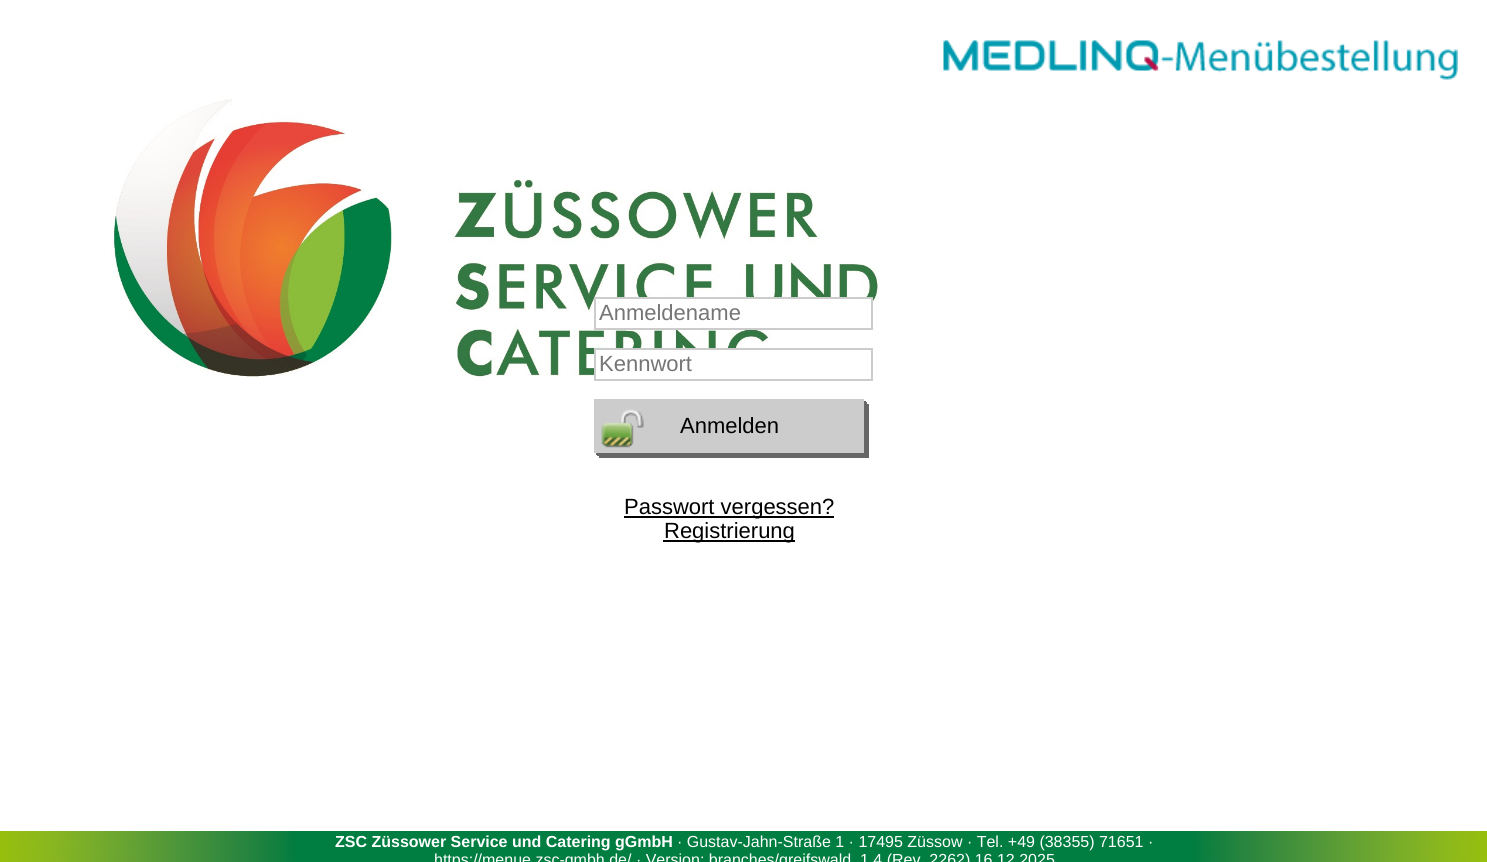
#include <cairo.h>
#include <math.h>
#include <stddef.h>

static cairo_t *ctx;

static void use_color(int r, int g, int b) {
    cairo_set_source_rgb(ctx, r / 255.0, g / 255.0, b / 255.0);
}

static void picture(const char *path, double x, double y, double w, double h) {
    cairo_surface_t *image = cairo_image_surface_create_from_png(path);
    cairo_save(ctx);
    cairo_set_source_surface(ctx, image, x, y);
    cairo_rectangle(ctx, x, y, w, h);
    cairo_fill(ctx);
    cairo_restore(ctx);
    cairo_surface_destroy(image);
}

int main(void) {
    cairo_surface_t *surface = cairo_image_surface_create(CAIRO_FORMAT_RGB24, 1487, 862);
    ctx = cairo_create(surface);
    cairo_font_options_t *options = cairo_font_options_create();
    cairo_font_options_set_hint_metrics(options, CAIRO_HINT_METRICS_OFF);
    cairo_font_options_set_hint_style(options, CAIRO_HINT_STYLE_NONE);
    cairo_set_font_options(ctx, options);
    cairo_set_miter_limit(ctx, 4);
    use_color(255, 255, 255);
    cairo_paint(ctx);
    picture("img1.png", 943, 40, 515, 40);
    picture("img2.png", 111, 99, 768, 279);
    use_color(255, 255, 255);
    cairo_rectangle(ctx, 595, 298, 277, 31);
    cairo_fill_preserve(ctx);
    use_color(204, 204, 204);
    cairo_stroke(ctx);
    cairo_select_font_face(ctx, "Liberation Sans", CAIRO_FONT_SLANT_NORMAL, CAIRO_FONT_WEIGHT_NORMAL);
    cairo_set_font_size(ctx, 22);
    use_color(117, 117, 117);
    cairo_move_to(ctx, 599, 320);
    cairo_show_text(ctx, "Anmeldename");
    use_color(255, 255, 255);
    cairo_rectangle(ctx, 596, 350, 180, 28);
    cairo_fill(ctx);
    cairo_rectangle(ctx, 595, 349, 277, 31);
    use_color(204, 204, 204);
    cairo_stroke(ctx);
    use_color(117, 117, 117);
    cairo_move_to(ctx, 599, 371);
    cairo_show_text(ctx, "Kennwort");
    use_color(102, 102, 102);
    cairo_new_path(ctx);
    cairo_move_to(ctx, 596, 453);
    cairo_line_to(ctx, 596, 455);
    cairo_line_to(ctx, 866, 455);
    cairo_line_to(ctx, 866, 401);
    cairo_line_to(ctx, 864, 401);
    cairo_line_to(ctx, 864, 453);
    cairo_close_path(ctx);
    cairo_fill(ctx);
    cairo_new_path(ctx);
    cairo_move_to(ctx, 597, 453);
    cairo_line_to(ctx, 597, 456);
    cairo_line_to(ctx, 867, 456);
    cairo_line_to(ctx, 867, 402);
    cairo_line_to(ctx, 864, 402);
    cairo_line_to(ctx, 864, 453);
    cairo_close_path(ctx);
    cairo_fill(ctx);
    cairo_new_path(ctx);
    cairo_move_to(ctx, 599, 453);
    cairo_line_to(ctx, 599, 458);
    cairo_line_to(ctx, 869, 458);
    cairo_line_to(ctx, 869, 404);
    cairo_line_to(ctx, 864, 404);
    cairo_line_to(ctx, 864, 453);
    cairo_close_path(ctx);
    cairo_fill(ctx);
    use_color(204, 204, 204);
    cairo_rectangle(ctx, 594, 399, 270, 54);
    cairo_fill(ctx);
    picture("img3.png", 601, 409, 43, 39);
    use_color(0, 0, 0);
    cairo_move_to(ctx, 680, 433);
    cairo_show_text(ctx, "Anmelden");
    cairo_rectangle(ctx, 624, 516, 210, 2);
    cairo_fill(ctx);
    cairo_move_to(ctx, 624, 514);
    cairo_show_text(ctx, "Passwort vergessen?");
    cairo_rectangle(ctx, 663, 540, 132, 2);
    cairo_fill(ctx);
    cairo_move_to(ctx, 664, 538);
    cairo_show_text(ctx, "Registrierung");
    picture("img4.png", 0, 831, 297, 31);
    use_color(0, 125, 64);
    cairo_rectangle(ctx, 297, 831, 894, 31);
    cairo_fill(ctx);
    cairo_select_font_face(ctx, "Liberation Sans", CAIRO_FONT_SLANT_NORMAL, CAIRO_FONT_WEIGHT_BOLD);
    cairo_set_font_size(ctx, 16);
    use_color(255, 255, 255);
    cairo_move_to(ctx, 335, 847);
    cairo_show_text(ctx, "ZSC Züssower Service und Catering gGmbH");
    cairo_select_font_face(ctx, "Liberation Sans", CAIRO_FONT_SLANT_NORMAL, CAIRO_FONT_WEIGHT_NORMAL);
    cairo_move_to(ctx, 677, 847);
    cairo_show_text(ctx, "· Gustav-Jahn-Straße 1 · 17495 Züssow · Tel. +49 (38355) 71651 ·");
    cairo_move_to(ctx, 434, 865);
    cairo_show_text(ctx, "https://menue.zsc-gmbh.de/ · Version: branches/greifswald, 1.4 (Rev. 2262) 16.12.2025");
    picture("img5.png", 1191, 831, 296, 31);
    cairo_surface_write_to_png(surface, "result.png");
    cairo_font_options_destroy(options);
    cairo_destroy(ctx);
    cairo_surface_destroy(surface);
    return 0;
}
